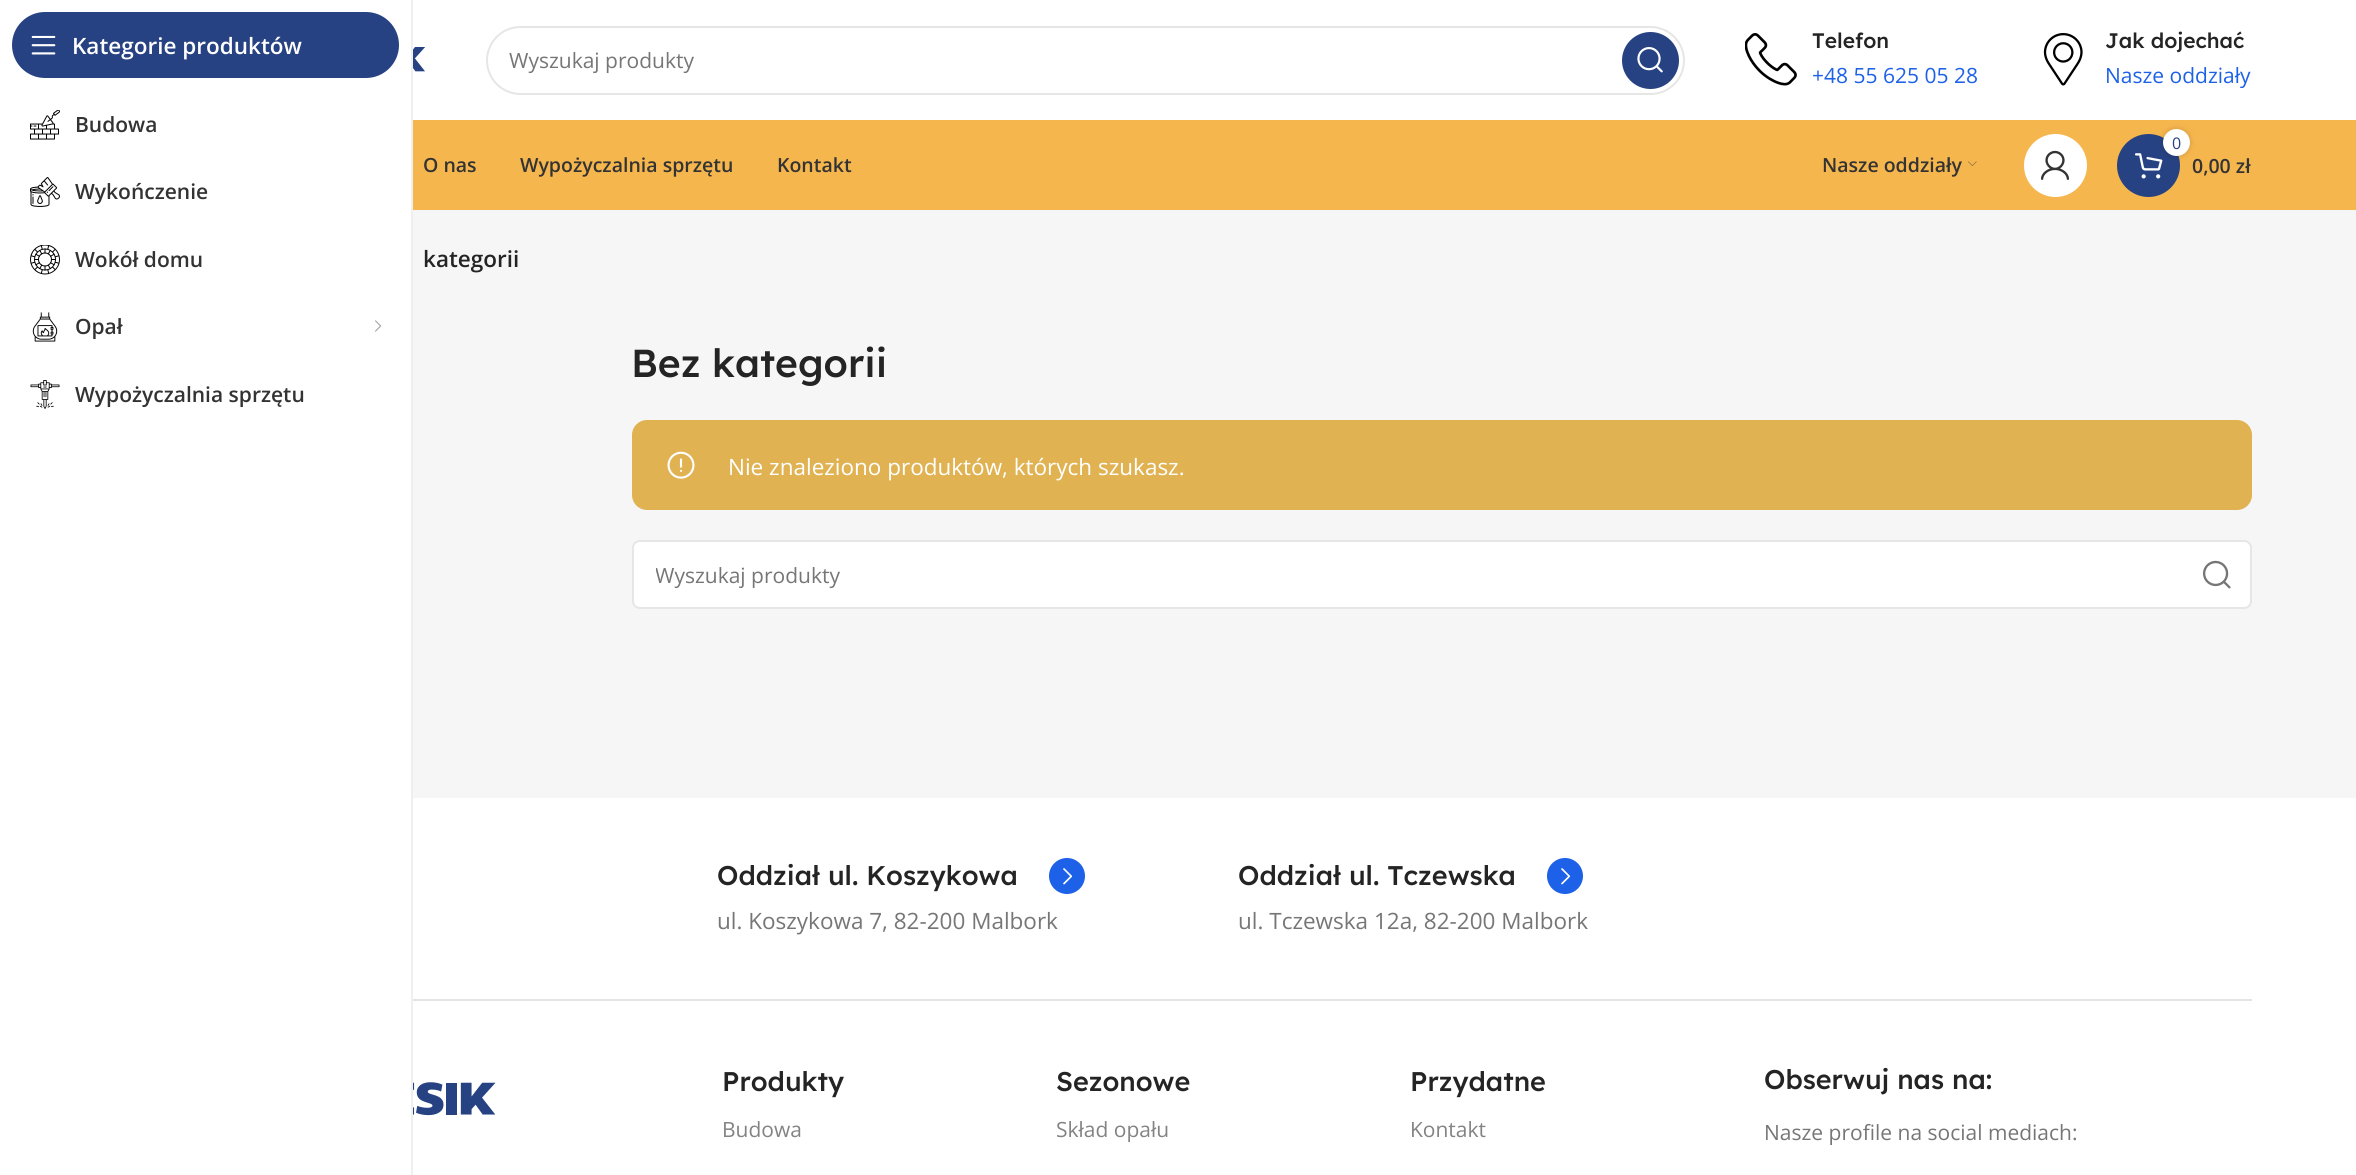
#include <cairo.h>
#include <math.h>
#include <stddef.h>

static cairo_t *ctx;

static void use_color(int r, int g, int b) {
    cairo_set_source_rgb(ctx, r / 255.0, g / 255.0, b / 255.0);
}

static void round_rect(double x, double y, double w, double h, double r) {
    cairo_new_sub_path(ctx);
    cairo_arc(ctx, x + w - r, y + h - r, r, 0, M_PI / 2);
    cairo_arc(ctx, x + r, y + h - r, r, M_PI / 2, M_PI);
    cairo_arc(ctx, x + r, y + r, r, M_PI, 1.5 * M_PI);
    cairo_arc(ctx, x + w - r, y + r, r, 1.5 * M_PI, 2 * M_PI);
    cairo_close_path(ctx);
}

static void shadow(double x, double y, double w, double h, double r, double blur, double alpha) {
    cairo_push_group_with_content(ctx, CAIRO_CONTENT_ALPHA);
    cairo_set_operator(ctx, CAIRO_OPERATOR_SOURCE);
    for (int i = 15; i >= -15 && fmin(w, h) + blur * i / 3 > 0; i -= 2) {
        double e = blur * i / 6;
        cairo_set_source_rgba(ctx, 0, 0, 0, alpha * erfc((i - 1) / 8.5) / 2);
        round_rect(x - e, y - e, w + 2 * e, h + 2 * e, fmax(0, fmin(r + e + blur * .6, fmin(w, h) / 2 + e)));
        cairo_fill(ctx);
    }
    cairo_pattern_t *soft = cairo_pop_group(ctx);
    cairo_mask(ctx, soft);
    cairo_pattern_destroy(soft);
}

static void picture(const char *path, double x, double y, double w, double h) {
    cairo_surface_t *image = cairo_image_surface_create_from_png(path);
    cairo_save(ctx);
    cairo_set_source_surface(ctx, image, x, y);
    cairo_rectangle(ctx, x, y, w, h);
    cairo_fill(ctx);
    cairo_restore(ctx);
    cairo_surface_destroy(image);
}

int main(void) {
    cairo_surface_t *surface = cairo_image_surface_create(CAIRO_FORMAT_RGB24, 2356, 1175);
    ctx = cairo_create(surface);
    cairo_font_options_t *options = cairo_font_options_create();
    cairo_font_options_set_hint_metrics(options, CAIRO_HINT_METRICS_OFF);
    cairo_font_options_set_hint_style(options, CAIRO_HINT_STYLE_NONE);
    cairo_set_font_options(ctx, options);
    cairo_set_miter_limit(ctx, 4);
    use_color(255, 255, 255);
    cairo_paint(ctx);
    use_color(239, 239, 239);
    cairo_rectangle(ctx, 411, 0, 2, 1175);
    cairo_fill(ctx);
    use_color(39, 66, 130);
    round_rect(12, 12, 387, 66, 33);
    cairo_fill(ctx);
    picture("img1.png", 31, 35, 25, 20);
    cairo_select_font_face(ctx, "Open Sans SemiBold", CAIRO_FONT_SLANT_NORMAL, CAIRO_FONT_WEIGHT_NORMAL);
    cairo_set_font_size(ctx, 22.5);
    use_color(255, 255, 255);
    cairo_move_to(ctx, 72, 54);
    cairo_show_text(ctx, "Kategorie produktów");
    picture("img2.png", 30, 110, 30, 30);
    cairo_set_font_size(ctx, 21);
    use_color(51, 51, 51);
    cairo_move_to(ctx, 75, 132);
    cairo_show_text(ctx, "Budowa");
    picture("img3.png", 30, 177, 30, 30);
    cairo_move_to(ctx, 75, 199);
    cairo_show_text(ctx, "Wykończenie");
    picture("img4.png", 30, 245, 30, 30);
    cairo_move_to(ctx, 75, 267);
    cairo_show_text(ctx, "Wokół domu");
    picture("img5.png", 32, 312, 26, 30);
    cairo_move_to(ctx, 75, 334);
    cairo_show_text(ctx, "Opał");
    picture("img6.png", 375, 320, 6, 12);
    picture("img7.png", 30, 380, 30, 29);
    cairo_move_to(ctx, 75, 402);
    cairo_show_text(ctx, "Wypożyczalnia sprzętu");
    picture("img8.png", 413, 47, 12, 25);
    round_rect(487, 27, 1197, 67, 33.5);
    use_color(230, 230, 230);
    cairo_stroke(ctx);
    cairo_select_font_face(ctx, "Open Sans", CAIRO_FONT_SLANT_NORMAL, CAIRO_FONT_WEIGHT_NORMAL);
    use_color(118, 118, 118);
    cairo_move_to(ctx, 509, 68);
    cairo_show_text(ctx, "Wyszukaj produkty");
    use_color(39, 66, 130);
    cairo_new_path(ctx);
    cairo_arc(ctx, 1650.5, 60.5, 28.5, 0, 2 * M_PI);
    cairo_fill(ctx);
    picture("img9.png", 1637, 47, 26, 26);
    picture("img10.png", 1745, 33, 52, 53);
    cairo_select_font_face(ctx, "Lexend Deca Medium", CAIRO_FONT_SLANT_NORMAL, CAIRO_FONT_WEIGHT_NORMAL);
    use_color(36, 36, 36);
    cairo_move_to(ctx, 1812, 48);
    cairo_show_text(ctx, "Telefon");
    cairo_select_font_face(ctx, "Open Sans", CAIRO_FONT_SLANT_NORMAL, CAIRO_FONT_WEIGHT_NORMAL);
    use_color(28, 97, 231);
    cairo_move_to(ctx, 1812, 83);
    cairo_show_text(ctx, "+48 55 625 05 28");
    picture("img11.png", 2043, 33, 40, 53);
    cairo_select_font_face(ctx, "Lexend Deca Medium", CAIRO_FONT_SLANT_NORMAL, CAIRO_FONT_WEIGHT_NORMAL);
    use_color(36, 36, 36);
    cairo_move_to(ctx, 2105, 48);
    cairo_show_text(ctx, "Jak dojechać");
    cairo_select_font_face(ctx, "Open Sans", CAIRO_FONT_SLANT_NORMAL, CAIRO_FONT_WEIGHT_NORMAL);
    use_color(28, 97, 231);
    cairo_move_to(ctx, 2105, 83);
    cairo_show_text(ctx, "Nasze oddziały");
    use_color(246, 182, 78);
    cairo_rectangle(ctx, 413, 120, 1943, 90);
    cairo_fill(ctx);
    cairo_select_font_face(ctx, "Open Sans SemiBold", CAIRO_FONT_SLANT_NORMAL, CAIRO_FONT_WEIGHT_NORMAL);
    cairo_set_font_size(ctx, 19.5);
    use_color(51, 51, 51);
    cairo_move_to(ctx, 423, 172);
    cairo_show_text(ctx, "O nas");
    cairo_move_to(ctx, 520, 172);
    cairo_show_text(ctx, "Wypożyczalnia sprzętu");
    cairo_move_to(ctx, 777, 172);
    cairo_show_text(ctx, "Kontakt");
    cairo_move_to(ctx, 1822, 172);
    cairo_show_text(ctx, "Nasze oddziały");
    picture("img12.png", 1968, 161, 9, 5);
    use_color(255, 255, 255);
    cairo_arc(ctx, 2055.5, 165.5, 31.5, 0, 2 * M_PI);
    cairo_fill(ctx);
    picture("img13.png", 2040, 150, 30, 30);
    use_color(39, 66, 130);
    cairo_arc(ctx, 2148.5, 165.5, 31.5, 0, 2 * M_PI);
    cairo_fill(ctx);
    picture("img14.png", 2135, 153, 28, 26);
    use_color(0, 0, 0);
    shadow(2163, 129, 27, 27, 13.5, 3, 0.17);
    use_color(255, 255, 255);
    cairo_arc(ctx, 2176.5, 142.5, 13.5, 0, 2 * M_PI);
    cairo_fill(ctx);
    cairo_select_font_face(ctx, "Open Sans", CAIRO_FONT_SLANT_NORMAL, CAIRO_FONT_WEIGHT_NORMAL);
    cairo_set_font_size(ctx, 16);
    use_color(39, 66, 130);
    cairo_move_to(ctx, 2172, 149);
    cairo_show_text(ctx, "0");
    cairo_select_font_face(ctx, "Open Sans SemiBold", CAIRO_FONT_SLANT_NORMAL, CAIRO_FONT_WEIGHT_NORMAL);
    cairo_set_font_size(ctx, 19.5);
    use_color(51, 51, 51);
    cairo_move_to(ctx, 2192, 173);
    cairo_show_text(ctx, "0,00 zł");
    use_color(246, 246, 246);
    cairo_rectangle(ctx, 413, 210, 1943, 588);
    cairo_fill(ctx);
    cairo_set_font_size(ctx, 22.5);
    use_color(36, 36, 36);
    cairo_move_to(ctx, 423, 267);
    cairo_show_text(ctx, "kategorii");
    cairo_select_font_face(ctx, "Lexend Deca Medium", CAIRO_FONT_SLANT_NORMAL, CAIRO_FONT_WEIGHT_NORMAL);
    cairo_set_font_size(ctx, 39);
    cairo_move_to(ctx, 631, 377);
    cairo_show_text(ctx, "Bez kategorii");
    use_color(224, 178, 82);
    round_rect(632, 420, 1620, 90, 15);
    cairo_fill(ctx);
    picture("img15.png", 667, 451, 28, 28);
    cairo_select_font_face(ctx, "Open Sans", CAIRO_FONT_SLANT_NORMAL, CAIRO_FONT_WEIGHT_NORMAL);
    cairo_set_font_size(ctx, 22.5);
    use_color(255, 255, 255);
    cairo_move_to(ctx, 728, 475);
    cairo_show_text(ctx, "Nie znaleziono produktów, których szukasz.");
    round_rect(632, 540, 1620, 69, 8);
    cairo_fill(ctx);
    round_rect(633, 541, 1618, 67, 7);
    cairo_set_source_rgba(ctx, 0, 0, 0, 0.1);
    cairo_stroke(ctx);
    cairo_save(ctx);
    cairo_rectangle(ctx, 656, 561, 1480, 29);
    cairo_clip(ctx);
    cairo_set_font_size(ctx, 21);
    use_color(118, 118, 118);
    cairo_move_to(ctx, 655, 583);
    cairo_show_text(ctx, "Wyszukaj produkty");
    cairo_restore(ctx);
    picture("img16.png", 2202, 560, 29, 29);
    use_color(228, 228, 228);
    cairo_rectangle(ctx, 413, 999, 1839, 2);
    cairo_fill(ctx);
    cairo_select_font_face(ctx, "Lexend Deca Medium", CAIRO_FONT_SLANT_NORMAL, CAIRO_FONT_WEIGHT_NORMAL);
    cairo_set_font_size(ctx, 27);
    use_color(36, 36, 36);
    cairo_move_to(ctx, 717, 885);
    cairo_show_text(ctx, "Oddział ul. Koszykowa");
    picture("img17.png", 1049, 858, 36, 36);
    cairo_select_font_face(ctx, "Open Sans", CAIRO_FONT_SLANT_NORMAL, CAIRO_FONT_WEIGHT_NORMAL);
    cairo_set_font_size(ctx, 22.5);
    use_color(118, 118, 118);
    cairo_move_to(ctx, 717, 929);
    cairo_show_text(ctx, "ul. Koszykowa 7, 82-200 Malbork");
    cairo_select_font_face(ctx, "Lexend Deca Medium", CAIRO_FONT_SLANT_NORMAL, CAIRO_FONT_WEIGHT_NORMAL);
    cairo_set_font_size(ctx, 27);
    use_color(36, 36, 36);
    cairo_move_to(ctx, 1238, 885);
    cairo_show_text(ctx, "Oddział ul. Tczewska");
    picture("img17.png", 1547, 858, 36, 36);
    cairo_select_font_face(ctx, "Open Sans", CAIRO_FONT_SLANT_NORMAL, CAIRO_FONT_WEIGHT_NORMAL);
    cairo_set_font_size(ctx, 22.5);
    use_color(118, 118, 118);
    cairo_move_to(ctx, 1238, 929);
    cairo_show_text(ctx, "ul. Tczewska 12a, 82-200 Malbork");
    picture("img18.png", 413, 1082, 83, 34);
    cairo_select_font_face(ctx, "Lexend Deca Medium", CAIRO_FONT_SLANT_NORMAL, CAIRO_FONT_WEIGHT_NORMAL);
    cairo_set_font_size(ctx, 27);
    use_color(36, 36, 36);
    cairo_move_to(ctx, 722, 1091);
    cairo_show_text(ctx, "Produkty");
    cairo_select_font_face(ctx, "Open Sans", CAIRO_FONT_SLANT_NORMAL, CAIRO_FONT_WEIGHT_NORMAL);
    cairo_set_font_size(ctx, 21);
    use_color(131, 131, 131);
    cairo_move_to(ctx, 722, 1137);
    cairo_show_text(ctx, "Budowa");
    cairo_select_font_face(ctx, "Lexend Deca Medium", CAIRO_FONT_SLANT_NORMAL, CAIRO_FONT_WEIGHT_NORMAL);
    cairo_set_font_size(ctx, 27);
    use_color(36, 36, 36);
    cairo_move_to(ctx, 1056, 1091);
    cairo_show_text(ctx, "Sezonowe");
    cairo_select_font_face(ctx, "Open Sans", CAIRO_FONT_SLANT_NORMAL, CAIRO_FONT_WEIGHT_NORMAL);
    cairo_set_font_size(ctx, 21);
    use_color(131, 131, 131);
    cairo_move_to(ctx, 1056, 1137);
    cairo_show_text(ctx, "Skład opału");
    cairo_select_font_face(ctx, "Lexend Deca Medium", CAIRO_FONT_SLANT_NORMAL, CAIRO_FONT_WEIGHT_NORMAL);
    cairo_set_font_size(ctx, 27);
    use_color(36, 36, 36);
    cairo_move_to(ctx, 1410, 1091);
    cairo_show_text(ctx, "Przydatne");
    cairo_select_font_face(ctx, "Open Sans", CAIRO_FONT_SLANT_NORMAL, CAIRO_FONT_WEIGHT_NORMAL);
    cairo_set_font_size(ctx, 21);
    use_color(131, 131, 131);
    cairo_move_to(ctx, 1410, 1137);
    cairo_show_text(ctx, "Kontakt");
    cairo_select_font_face(ctx, "Lexend Deca Medium", CAIRO_FONT_SLANT_NORMAL, CAIRO_FONT_WEIGHT_NORMAL);
    cairo_set_font_size(ctx, 27);
    use_color(36, 36, 36);
    cairo_move_to(ctx, 1764, 1089);
    cairo_show_text(ctx, "Obserwuj nas na:");
    cairo_select_font_face(ctx, "Open Sans", CAIRO_FONT_SLANT_NORMAL, CAIRO_FONT_WEIGHT_NORMAL);
    cairo_set_font_size(ctx, 21);
    use_color(118, 118, 118);
    cairo_move_to(ctx, 1764, 1140);
    cairo_show_text(ctx, "Nasze profile na social mediach:");
    cairo_surface_write_to_png(surface, "result.png");
    cairo_font_options_destroy(options);
    cairo_destroy(ctx);
    cairo_surface_destroy(surface);
    return 0;
}
